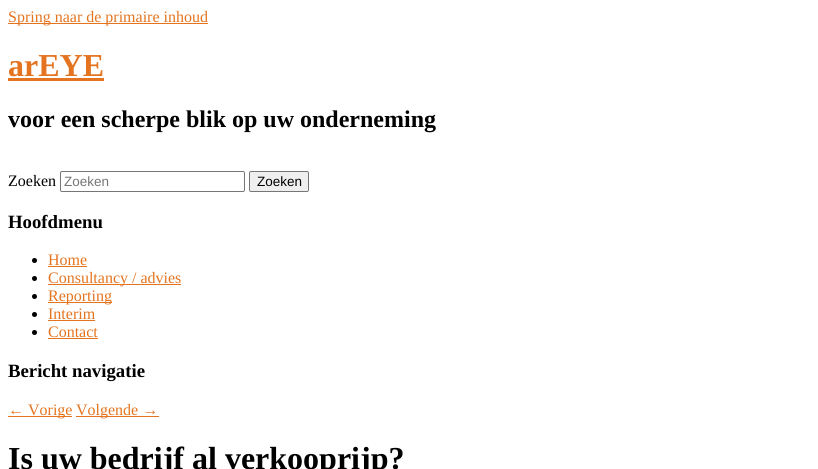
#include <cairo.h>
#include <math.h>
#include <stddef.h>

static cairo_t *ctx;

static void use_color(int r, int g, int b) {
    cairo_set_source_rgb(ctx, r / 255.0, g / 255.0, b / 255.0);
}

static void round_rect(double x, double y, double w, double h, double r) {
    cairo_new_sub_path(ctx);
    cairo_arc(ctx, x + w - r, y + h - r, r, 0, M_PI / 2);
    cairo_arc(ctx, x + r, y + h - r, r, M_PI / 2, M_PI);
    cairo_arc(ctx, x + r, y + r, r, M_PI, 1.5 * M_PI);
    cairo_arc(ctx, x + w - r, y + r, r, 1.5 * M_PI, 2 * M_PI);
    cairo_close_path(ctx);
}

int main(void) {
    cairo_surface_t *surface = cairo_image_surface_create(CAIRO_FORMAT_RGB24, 818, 469);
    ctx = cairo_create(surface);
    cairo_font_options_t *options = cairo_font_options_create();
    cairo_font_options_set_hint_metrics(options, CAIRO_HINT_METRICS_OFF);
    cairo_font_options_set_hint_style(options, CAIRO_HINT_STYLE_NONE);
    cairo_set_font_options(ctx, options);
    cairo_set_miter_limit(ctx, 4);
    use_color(255, 255, 255);
    cairo_paint(ctx);
    use_color(228, 116, 31);
    cairo_rectangle(ctx, 8, 23, 200, 1);
    cairo_fill(ctx);
    cairo_select_font_face(ctx, "Liberation Serif", CAIRO_FONT_SLANT_NORMAL, CAIRO_FONT_WEIGHT_NORMAL);
    cairo_set_font_size(ctx, 16);
    cairo_move_to(ctx, 8, 22);
    cairo_show_text(ctx, "Spring naar de primaire inhoud");
    cairo_select_font_face(ctx, "Liberation Serif", CAIRO_FONT_SLANT_NORMAL, CAIRO_FONT_WEIGHT_BOLD);
    cairo_set_font_size(ctx, 32);
    cairo_move_to(ctx, 8, 76);
    cairo_show_text(ctx, "arEYE");
    cairo_rectangle(ctx, 8, 78, 96, 3);
    cairo_fill(ctx);
    cairo_set_font_size(ctx, 24);
    use_color(0, 0, 0);
    cairo_move_to(ctx, 8, 127);
    cairo_show_text(ctx, "voor een scherpe blik op uw onderneming");
    cairo_select_font_face(ctx, "Liberation Serif", CAIRO_FONT_SLANT_NORMAL, CAIRO_FONT_WEIGHT_NORMAL);
    cairo_set_font_size(ctx, 16);
    cairo_move_to(ctx, 8, 186);
    cairo_show_text(ctx, "Zoeken");
    round_rect(60.5, 171.5, 184, 20, 1.5);
    use_color(118, 118, 118);
    cairo_set_line_width(ctx, 1);
    cairo_stroke(ctx);
    cairo_select_font_face(ctx, "Liberation Sans", CAIRO_FONT_SLANT_NORMAL, CAIRO_FONT_WEIGHT_NORMAL);
    cairo_set_font_size(ctx, 13.5);
    use_color(117, 117, 117);
    cairo_move_to(ctx, 64, 186);
    cairo_show_text(ctx, "Zoeken");
    use_color(239, 239, 239);
    round_rect(249.5, 171.5, 59, 20, 1.5);
    cairo_fill_preserve(ctx);
    use_color(118, 118, 118);
    cairo_stroke(ctx);
    use_color(0, 0, 0);
    cairo_move_to(ctx, 257, 186);
    cairo_show_text(ctx, "Zoeken");
    cairo_select_font_face(ctx, "Liberation Serif", CAIRO_FONT_SLANT_NORMAL, CAIRO_FONT_WEIGHT_BOLD);
    cairo_set_font_size(ctx, 18.75);
    cairo_move_to(ctx, 8, 228);
    cairo_show_text(ctx, "Hoofdmenu");
    cairo_new_path(ctx);
    cairo_arc(ctx, 34.5, 260.5, 2.5, 0, 2 * M_PI);
    cairo_fill(ctx);
    cairo_select_font_face(ctx, "Liberation Serif", CAIRO_FONT_SLANT_NORMAL, CAIRO_FONT_WEIGHT_NORMAL);
    cairo_set_font_size(ctx, 16);
    use_color(228, 116, 31);
    cairo_move_to(ctx, 48, 265);
    cairo_show_text(ctx, "Home");
    cairo_rectangle(ctx, 48, 266, 39, 1);
    cairo_fill(ctx);
    use_color(0, 0, 0);
    cairo_arc(ctx, 34.5, 278.5, 2.5, 0, 2 * M_PI);
    cairo_fill(ctx);
    use_color(228, 116, 31);
    cairo_rectangle(ctx, 48, 284, 133, 1);
    cairo_fill(ctx);
    cairo_move_to(ctx, 48, 283);
    cairo_show_text(ctx, "Consultancy / advies");
    use_color(0, 0, 0);
    cairo_new_path(ctx);
    cairo_arc(ctx, 34.5, 296.5, 2.5, 0, 2 * M_PI);
    cairo_fill(ctx);
    use_color(228, 116, 31);
    cairo_rectangle(ctx, 48, 302, 64, 1);
    cairo_fill(ctx);
    cairo_move_to(ctx, 48, 301);
    cairo_show_text(ctx, "Reporting");
    use_color(0, 0, 0);
    cairo_new_path(ctx);
    cairo_arc(ctx, 34.5, 314.5, 2.5, 0, 2 * M_PI);
    cairo_fill(ctx);
    use_color(228, 116, 31);
    cairo_move_to(ctx, 48, 319);
    cairo_show_text(ctx, "Interim");
    cairo_rectangle(ctx, 48, 320, 47, 1);
    cairo_fill(ctx);
    use_color(0, 0, 0);
    cairo_arc(ctx, 34.5, 332.5, 2.5, 0, 2 * M_PI);
    cairo_fill(ctx);
    use_color(228, 116, 31);
    cairo_move_to(ctx, 48, 337);
    cairo_show_text(ctx, "Contact");
    cairo_rectangle(ctx, 48, 338, 50, 1);
    cairo_fill(ctx);
    cairo_select_font_face(ctx, "Liberation Serif", CAIRO_FONT_SLANT_NORMAL, CAIRO_FONT_WEIGHT_BOLD);
    cairo_set_font_size(ctx, 18.75);
    use_color(0, 0, 0);
    cairo_move_to(ctx, 8, 377);
    cairo_show_text(ctx, "Bericht navigatie");
    use_color(228, 116, 31);
    cairo_rectangle(ctx, 8, 416, 64, 1);
    cairo_fill(ctx);
    cairo_select_font_face(ctx, "Liberation Serif", CAIRO_FONT_SLANT_NORMAL, CAIRO_FONT_WEIGHT_NORMAL);
    cairo_set_font_size(ctx, 16);
    cairo_move_to(ctx, 8, 415);
    cairo_show_text(ctx, "← Vorige");
    cairo_rectangle(ctx, 76, 416, 83, 1);
    cairo_fill(ctx);
    cairo_move_to(ctx, 76, 415);
    cairo_show_text(ctx, "Volgende →");
    cairo_select_font_face(ctx, "Liberation Serif", CAIRO_FONT_SLANT_NORMAL, CAIRO_FONT_WEIGHT_BOLD);
    cairo_set_font_size(ctx, 32);
    use_color(0, 0, 0);
    cairo_move_to(ctx, 8, 469);
    cairo_show_text(ctx, "Is uw bedrijf al verkooprijp?");
    cairo_surface_write_to_png(surface, "result.png");
    cairo_font_options_destroy(options);
    cairo_destroy(ctx);
    cairo_surface_destroy(surface);
    return 0;
}
